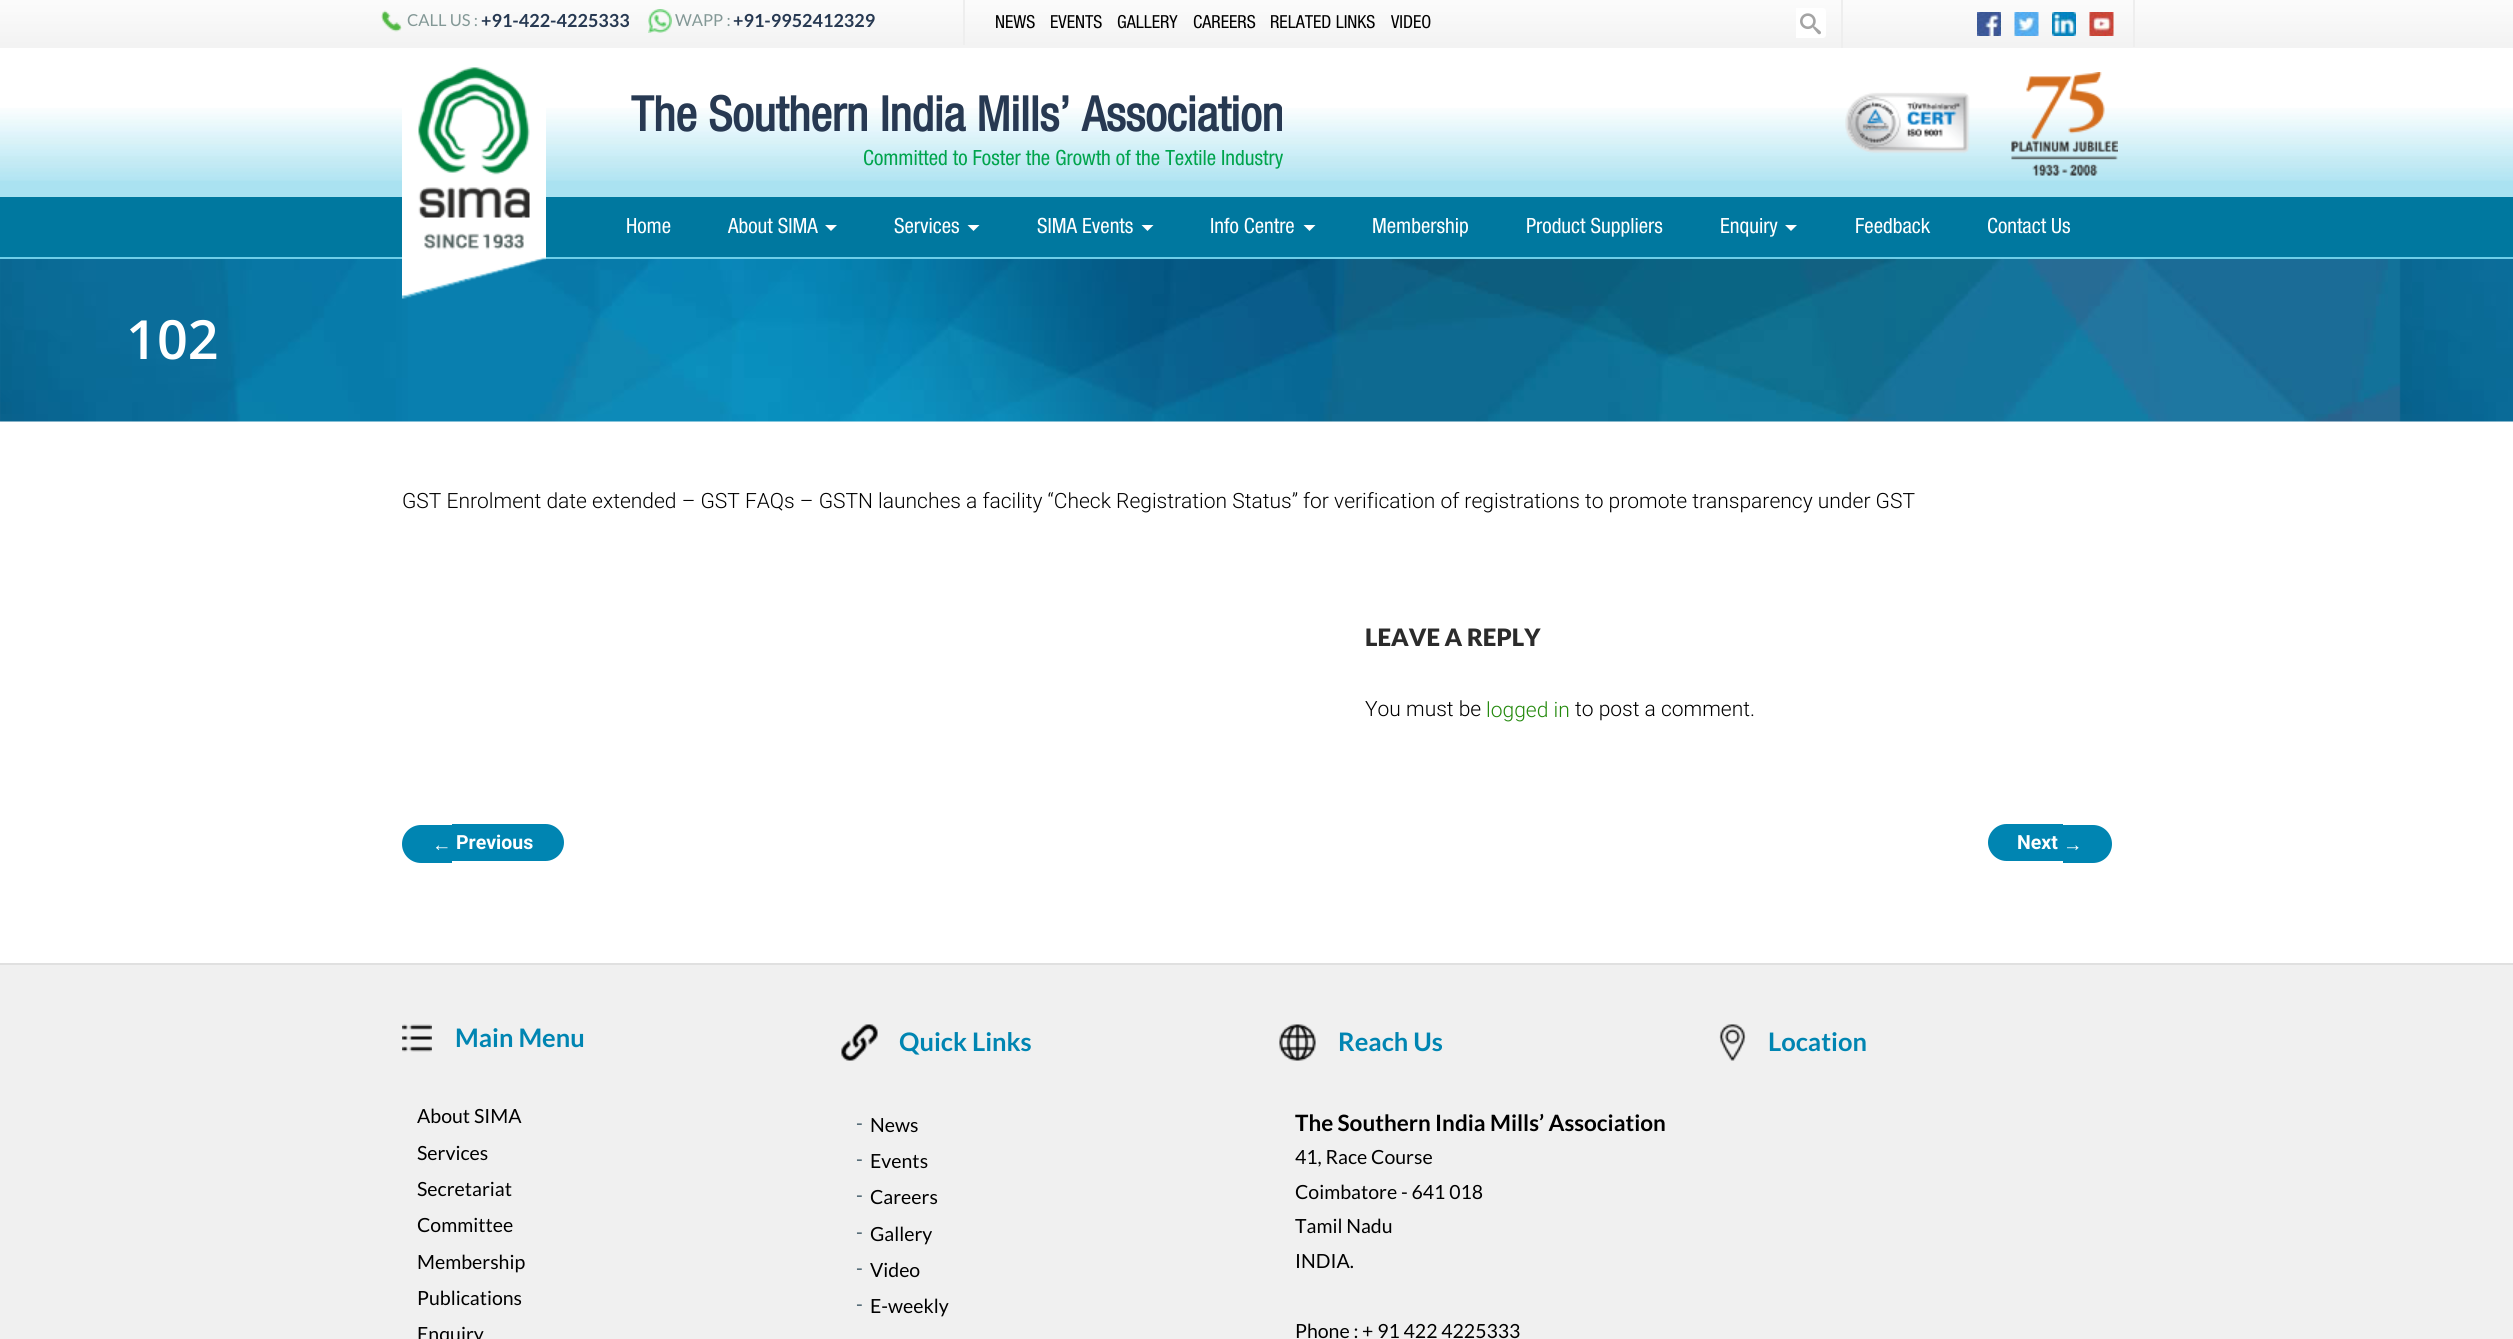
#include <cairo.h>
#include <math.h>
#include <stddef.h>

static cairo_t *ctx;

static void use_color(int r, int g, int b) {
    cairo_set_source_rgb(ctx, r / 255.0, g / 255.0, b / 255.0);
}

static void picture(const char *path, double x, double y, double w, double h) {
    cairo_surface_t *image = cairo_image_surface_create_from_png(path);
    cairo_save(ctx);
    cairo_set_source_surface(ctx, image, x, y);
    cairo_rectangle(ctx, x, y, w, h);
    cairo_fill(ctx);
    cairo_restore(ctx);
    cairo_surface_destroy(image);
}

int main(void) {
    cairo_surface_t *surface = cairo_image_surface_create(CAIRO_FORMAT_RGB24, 2513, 1339);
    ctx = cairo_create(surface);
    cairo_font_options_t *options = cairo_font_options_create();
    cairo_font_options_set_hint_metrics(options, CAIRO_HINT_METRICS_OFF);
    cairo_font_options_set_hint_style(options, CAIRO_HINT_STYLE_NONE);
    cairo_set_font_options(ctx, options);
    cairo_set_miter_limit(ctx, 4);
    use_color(255, 255, 255);
    cairo_paint(ctx);
    picture("img1.png", 0, 0, 2513, 48);
    use_color(238, 238, 238);
    cairo_rectangle(ctx, 963, 0, 2, 45);
    cairo_fill(ctx);
    picture("img2.png", 381, 10, 21, 22);
    cairo_select_font_face(ctx, "Lato", CAIRO_FONT_SLANT_NORMAL, CAIRO_FONT_WEIGHT_NORMAL);
    cairo_set_font_size(ctx, 16.5);
    use_color(131, 152, 150);
    cairo_move_to(ctx, 407, 26);
    cairo_show_text(ctx, "CALL US :");
    cairo_select_font_face(ctx, "Lato", CAIRO_FONT_SLANT_NORMAL, CAIRO_FONT_WEIGHT_BOLD);
    cairo_set_font_size(ctx, 18);
    use_color(39, 57, 82);
    cairo_move_to(ctx, 481, 27);
    cairo_show_text(ctx, "+91-422-4225333");
    picture("img3.png", 648, 9, 24, 24);
    cairo_select_font_face(ctx, "Lato", CAIRO_FONT_SLANT_NORMAL, CAIRO_FONT_WEIGHT_NORMAL);
    cairo_set_font_size(ctx, 16.5);
    use_color(131, 152, 150);
    cairo_move_to(ctx, 675, 26);
    cairo_show_text(ctx, "WAPP :");
    cairo_select_font_face(ctx, "Lato", CAIRO_FONT_SLANT_NORMAL, CAIRO_FONT_WEIGHT_BOLD);
    cairo_set_font_size(ctx, 18);
    use_color(39, 57, 82);
    cairo_move_to(ctx, 733, 27);
    cairo_show_text(ctx, "+91-9952412329");
    cairo_select_font_face(ctx, "Helvetica Neue", CAIRO_FONT_SLANT_NORMAL, CAIRO_FONT_WEIGHT_NORMAL);
    use_color(0, 0, 0);
    cairo_move_to(ctx, 995, 28);
    cairo_show_text(ctx, "NEWS");
    cairo_move_to(ctx, 1050, 28);
    cairo_show_text(ctx, "EVENTS");
    cairo_move_to(ctx, 1117, 28);
    cairo_show_text(ctx, "GALLERY");
    cairo_move_to(ctx, 1193, 28);
    cairo_show_text(ctx, "CAREERS");
    cairo_move_to(ctx, 1270, 28);
    cairo_show_text(ctx, "RELATED LINKS");
    cairo_move_to(ctx, 1391, 28);
    cairo_show_text(ctx, "VIDEO");
    use_color(238, 238, 238);
    cairo_rectangle(ctx, 1841, 0, 2, 48);
    cairo_fill(ctx);
    use_color(255, 255, 255);
    cairo_new_path(ctx);
    cairo_move_to(ctx, 1796, 8);
    cairo_line_to(ctx, 1823, 8);
    cairo_curve_to(ctx, 1824.5, 8, 1826, 9.5, 1826, 11);
    cairo_line_to(ctx, 1826, 35);
    cairo_curve_to(ctx, 1826, 36.5, 1824.5, 38, 1823, 38);
    cairo_line_to(ctx, 1796, 38);
    cairo_close_path(ctx);
    cairo_fill(ctx);
    picture("img4.png", 1800, 13, 21, 22);
    use_color(238, 238, 238);
    cairo_rectangle(ctx, 2133, 0, 2, 47);
    cairo_fill(ctx);
    picture("img5.png", 1977, 12, 24, 24);
    picture("img6.png", 2014, 12, 25, 24);
    picture("img7.png", 2052, 12, 24, 24);
    picture("img8.png", 2089, 12, 25, 24);
    use_color(170, 226, 241);
    cairo_rectangle(ctx, 0, 181, 2513, 16);
    cairo_fill(ctx);
    picture("img9.png", 0, 48, 2513, 133);
    use_color(0, 120, 159);
    cairo_rectangle(ctx, 0, 197, 2513, 60);
    cairo_fill(ctx);
    use_color(110, 206, 232);
    cairo_rectangle(ctx, 0, 257, 2513, 2);
    cairo_fill(ctx);
    picture("img12.png", 0, 259, 2513, 163);
    picture("img10.png", 402, 67, 144, 232);
    cairo_select_font_face(ctx, "Helvetica Neue", CAIRO_FONT_SLANT_NORMAL, CAIRO_FONT_WEIGHT_BOLD);
    cairo_set_font_size(ctx, 48);
    use_color(39, 57, 82);
    cairo_move_to(ctx, 631, 131);
    cairo_show_text(ctx, "The Southern India Mills’ Association");
    cairo_select_font_face(ctx, "Helvetica Neue", CAIRO_FONT_SLANT_NORMAL, CAIRO_FONT_WEIGHT_NORMAL);
    cairo_set_font_size(ctx, 21);
    use_color(0, 164, 77);
    cairo_move_to(ctx, 863, 165);
    cairo_show_text(ctx, "Committed to Foster the Growth of the Textile Industry");
    picture("img11.png", 1845, 72, 273, 104);
    use_color(255, 255, 255);
    cairo_move_to(ctx, 626, 233);
    cairo_show_text(ctx, "Home");
    cairo_move_to(ctx, 728, 233);
    cairo_show_text(ctx, "About SIMA");
    cairo_new_path(ctx);
    cairo_move_to(ctx, 825, 225);
    cairo_line_to(ctx, 837, 225);
    cairo_line_to(ctx, 831, 231);
    cairo_close_path(ctx);
    cairo_fill(ctx);
    cairo_move_to(ctx, 894, 233);
    cairo_show_text(ctx, "Services");
    cairo_new_path(ctx);
    cairo_move_to(ctx, 967.5, 225);
    cairo_line_to(ctx, 979.5, 225);
    cairo_line_to(ctx, 973.5, 231);
    cairo_close_path(ctx);
    cairo_fill(ctx);
    cairo_move_to(ctx, 1037, 233);
    cairo_show_text(ctx, "SIMA Events");
    cairo_new_path(ctx);
    cairo_move_to(ctx, 1141.5, 225);
    cairo_line_to(ctx, 1153.5, 225);
    cairo_line_to(ctx, 1147.5, 231);
    cairo_close_path(ctx);
    cairo_fill(ctx);
    cairo_move_to(ctx, 1210, 233);
    cairo_show_text(ctx, "Info Centre");
    cairo_new_path(ctx);
    cairo_move_to(ctx, 1303.5, 225);
    cairo_line_to(ctx, 1315.5, 225);
    cairo_line_to(ctx, 1309.5, 231);
    cairo_close_path(ctx);
    cairo_fill(ctx);
    cairo_move_to(ctx, 1372, 233);
    cairo_show_text(ctx, "Membership");
    cairo_move_to(ctx, 1526, 233);
    cairo_show_text(ctx, "Product Suppliers");
    cairo_move_to(ctx, 1720, 233);
    cairo_show_text(ctx, "Enquiry");
    cairo_new_path(ctx);
    cairo_move_to(ctx, 1785, 225);
    cairo_line_to(ctx, 1797, 225);
    cairo_line_to(ctx, 1791, 231);
    cairo_close_path(ctx);
    cairo_fill(ctx);
    cairo_move_to(ctx, 1855, 233);
    cairo_show_text(ctx, "Feedback");
    cairo_move_to(ctx, 1987, 233);
    cairo_show_text(ctx, "Contact Us");
    cairo_select_font_face(ctx, "Open Sans SemiBold", CAIRO_FONT_SLANT_NORMAL, CAIRO_FONT_WEIGHT_NORMAL);
    cairo_set_font_size(ctx, 54);
    cairo_move_to(ctx, 126, 359);
    cairo_show_text(ctx, "102");
    cairo_select_font_face(ctx, "Roboto Light", CAIRO_FONT_SLANT_NORMAL, CAIRO_FONT_WEIGHT_NORMAL);
    cairo_set_font_size(ctx, 21);
    use_color(0, 0, 0);
    cairo_move_to(ctx, 402, 508);
    cairo_show_text(ctx, "GST Enrolment date extended – GST FAQs – GSTN launches a facility “Check Registration Status” for verification of registrations to promote transparency under GST");
    cairo_select_font_face(ctx, "Lato Black", CAIRO_FONT_SLANT_NORMAL, CAIRO_FONT_WEIGHT_NORMAL);
    cairo_set_font_size(ctx, 24);
    use_color(43, 43, 43);
    cairo_move_to(ctx, 1365, 646);
    cairo_show_text(ctx, "LEAVE A REPLY");
    cairo_select_font_face(ctx, "Roboto Light", CAIRO_FONT_SLANT_NORMAL, CAIRO_FONT_WEIGHT_NORMAL);
    cairo_set_font_size(ctx, 21);
    use_color(0, 0, 0);
    cairo_move_to(ctx, 1365, 716);
    cairo_show_text(ctx, "You must be");
    use_color(36, 137, 13);
    cairo_move_to(ctx, 1486, 717);
    cairo_show_text(ctx, "logged in");
    use_color(0, 0, 0);
    cairo_move_to(ctx, 1575, 716);
    cairo_show_text(ctx, "to post a comment.");
    use_color(0, 133, 178);
    cairo_new_path(ctx);
    cairo_move_to(ctx, 421, 825);
    cairo_line_to(ctx, 452, 825);
    cairo_line_to(ctx, 452, 863);
    cairo_line_to(ctx, 421, 863);
    cairo_curve_to(ctx, 410.5, 863, 402, 854.5, 402, 844);
    cairo_curve_to(ctx, 402, 833.5, 410.5, 825, 421, 825);
    cairo_close_path(ctx);
    cairo_fill(ctx);
    cairo_select_font_face(ctx, "Liberation Sans", CAIRO_FONT_SLANT_NORMAL, CAIRO_FONT_WEIGHT_BOLD);
    cairo_set_font_size(ctx, 19.5);
    use_color(255, 255, 255);
    cairo_move_to(ctx, 432, 851);
    cairo_show_text(ctx, "←");
    use_color(0, 133, 178);
    cairo_new_path(ctx);
    cairo_move_to(ctx, 452, 824);
    cairo_line_to(ctx, 545.5, 824);
    cairo_curve_to(ctx, 555.5, 824, 564, 832.5, 564, 842.5);
    cairo_curve_to(ctx, 564, 852.5, 555.5, 861, 545.5, 861);
    cairo_line_to(ctx, 452, 861);
    cairo_close_path(ctx);
    cairo_fill(ctx);
    cairo_select_font_face(ctx, "Roboto", CAIRO_FONT_SLANT_NORMAL, CAIRO_FONT_WEIGHT_BOLD);
    use_color(255, 255, 255);
    cairo_move_to(ctx, 456, 849);
    cairo_show_text(ctx, "Previous");
    use_color(0, 133, 178);
    cairo_new_path(ctx);
    cairo_move_to(ctx, 2006.5, 824);
    cairo_line_to(ctx, 2063, 824);
    cairo_line_to(ctx, 2063, 861);
    cairo_line_to(ctx, 2006.5, 861);
    cairo_curve_to(ctx, 1996.5, 861, 1988, 852.5, 1988, 842.5);
    cairo_curve_to(ctx, 1988, 832.5, 1996.5, 824, 2006.5, 824);
    cairo_close_path(ctx);
    cairo_fill(ctx);
    use_color(255, 255, 255);
    cairo_move_to(ctx, 2017, 849);
    cairo_show_text(ctx, "Next");
    use_color(0, 133, 178);
    cairo_new_path(ctx);
    cairo_move_to(ctx, 2063, 825);
    cairo_line_to(ctx, 2093, 825);
    cairo_curve_to(ctx, 2103.5, 825, 2112, 833.5, 2112, 844);
    cairo_curve_to(ctx, 2112, 854.5, 2103.5, 863, 2093, 863);
    cairo_line_to(ctx, 2063, 863);
    cairo_close_path(ctx);
    cairo_fill(ctx);
    cairo_select_font_face(ctx, "Liberation Sans", CAIRO_FONT_SLANT_NORMAL, CAIRO_FONT_WEIGHT_BOLD);
    use_color(255, 255, 255);
    cairo_move_to(ctx, 2063, 851);
    cairo_show_text(ctx, "→");
    use_color(240, 240, 240);
    cairo_rectangle(ctx, 0, 965, 2513, 374);
    cairo_fill(ctx);
    use_color(224, 224, 224);
    cairo_rectangle(ctx, 0, 963, 2513, 2);
    cairo_fill(ctx);
    picture("img13.png", 402, 1024, 30, 28);
    cairo_select_font_face(ctx, "Lato", CAIRO_FONT_SLANT_NORMAL, CAIRO_FONT_WEIGHT_BOLD);
    cairo_set_font_size(ctx, 25.5);
    use_color(0, 133, 178);
    cairo_move_to(ctx, 455, 1047);
    cairo_show_text(ctx, "Main Menu");
    cairo_select_font_face(ctx, "Lato", CAIRO_FONT_SLANT_NORMAL, CAIRO_FONT_WEIGHT_NORMAL);
    cairo_set_font_size(ctx, 19.5);
    use_color(0, 0, 0);
    cairo_move_to(ctx, 417, 1123);
    cairo_show_text(ctx, "About SIMA");
    cairo_move_to(ctx, 417, 1160);
    cairo_show_text(ctx, "Services");
    cairo_move_to(ctx, 417, 1196);
    cairo_show_text(ctx, "Secretariat");
    cairo_move_to(ctx, 417, 1232);
    cairo_show_text(ctx, "Committee");
    cairo_move_to(ctx, 417, 1269);
    cairo_show_text(ctx, "Membership");
    cairo_move_to(ctx, 417, 1305);
    cairo_show_text(ctx, "Publications");
    cairo_move_to(ctx, 417, 1341);
    cairo_show_text(ctx, "Enquiry");
    picture("img14.png", 841, 1024, 37, 37);
    cairo_select_font_face(ctx, "Lato", CAIRO_FONT_SLANT_NORMAL, CAIRO_FONT_WEIGHT_BOLD);
    cairo_set_font_size(ctx, 25.5);
    use_color(0, 133, 178);
    cairo_move_to(ctx, 899, 1051);
    cairo_show_text(ctx, "Quick Links");
    cairo_select_font_face(ctx, "Lato", CAIRO_FONT_SLANT_NORMAL, CAIRO_FONT_WEIGHT_NORMAL);
    cairo_set_font_size(ctx, 19.5);
    use_color(69, 94, 107);
    cairo_move_to(ctx, 856, 1130);
    cairo_show_text(ctx, "-");
    use_color(0, 0, 0);
    cairo_move_to(ctx, 870, 1132);
    cairo_show_text(ctx, "News");
    use_color(69, 94, 107);
    cairo_move_to(ctx, 856, 1166);
    cairo_show_text(ctx, "-");
    use_color(0, 0, 0);
    cairo_move_to(ctx, 870, 1168);
    cairo_show_text(ctx, "Events");
    use_color(69, 94, 107);
    cairo_move_to(ctx, 856, 1202);
    cairo_show_text(ctx, "-");
    use_color(0, 0, 0);
    cairo_move_to(ctx, 870, 1204);
    cairo_show_text(ctx, "Careers");
    use_color(69, 94, 107);
    cairo_move_to(ctx, 856, 1239);
    cairo_show_text(ctx, "-");
    use_color(0, 0, 0);
    cairo_move_to(ctx, 870, 1241);
    cairo_show_text(ctx, "Gallery");
    use_color(69, 94, 107);
    cairo_move_to(ctx, 856, 1275);
    cairo_show_text(ctx, "-");
    use_color(0, 0, 0);
    cairo_move_to(ctx, 870, 1277);
    cairo_show_text(ctx, "Video");
    use_color(69, 94, 107);
    cairo_move_to(ctx, 856, 1311);
    cairo_show_text(ctx, "-");
    use_color(0, 0, 0);
    cairo_move_to(ctx, 870, 1313);
    cairo_show_text(ctx, "E-weekly");
    picture("img15.png", 1279, 1024, 37, 37);
    cairo_select_font_face(ctx, "Lato", CAIRO_FONT_SLANT_NORMAL, CAIRO_FONT_WEIGHT_BOLD);
    cairo_set_font_size(ctx, 25.5);
    use_color(0, 133, 178);
    cairo_move_to(ctx, 1338, 1051);
    cairo_show_text(ctx, "Reach Us");
    cairo_set_font_size(ctx, 22.5);
    use_color(0, 0, 0);
    cairo_move_to(ctx, 1295, 1131);
    cairo_show_text(ctx, "The Southern India Mills’ Association");
    cairo_select_font_face(ctx, "Lato", CAIRO_FONT_SLANT_NORMAL, CAIRO_FONT_WEIGHT_NORMAL);
    cairo_set_font_size(ctx, 19.5);
    cairo_move_to(ctx, 1295, 1164);
    cairo_show_text(ctx, "41, Race Course");
    cairo_move_to(ctx, 1295, 1199);
    cairo_show_text(ctx, "Coimbatore - 641 018");
    cairo_move_to(ctx, 1295, 1233);
    cairo_show_text(ctx, "Tamil Nadu");
    cairo_move_to(ctx, 1295, 1268);
    cairo_show_text(ctx, "INDIA.");
    cairo_move_to(ctx, 1295, 1338);
    cairo_show_text(ctx, "Phone : + 91 422 4225333");
    picture("img16.png", 1719, 1024, 27, 37);
    cairo_select_font_face(ctx, "Lato", CAIRO_FONT_SLANT_NORMAL, CAIRO_FONT_WEIGHT_BOLD);
    cairo_set_font_size(ctx, 25.5);
    use_color(0, 133, 178);
    cairo_move_to(ctx, 1768, 1051);
    cairo_show_text(ctx, "Location");
    cairo_surface_write_to_png(surface, "result.png");
    cairo_font_options_destroy(options);
    cairo_destroy(ctx);
    cairo_surface_destroy(surface);
    return 0;
}
